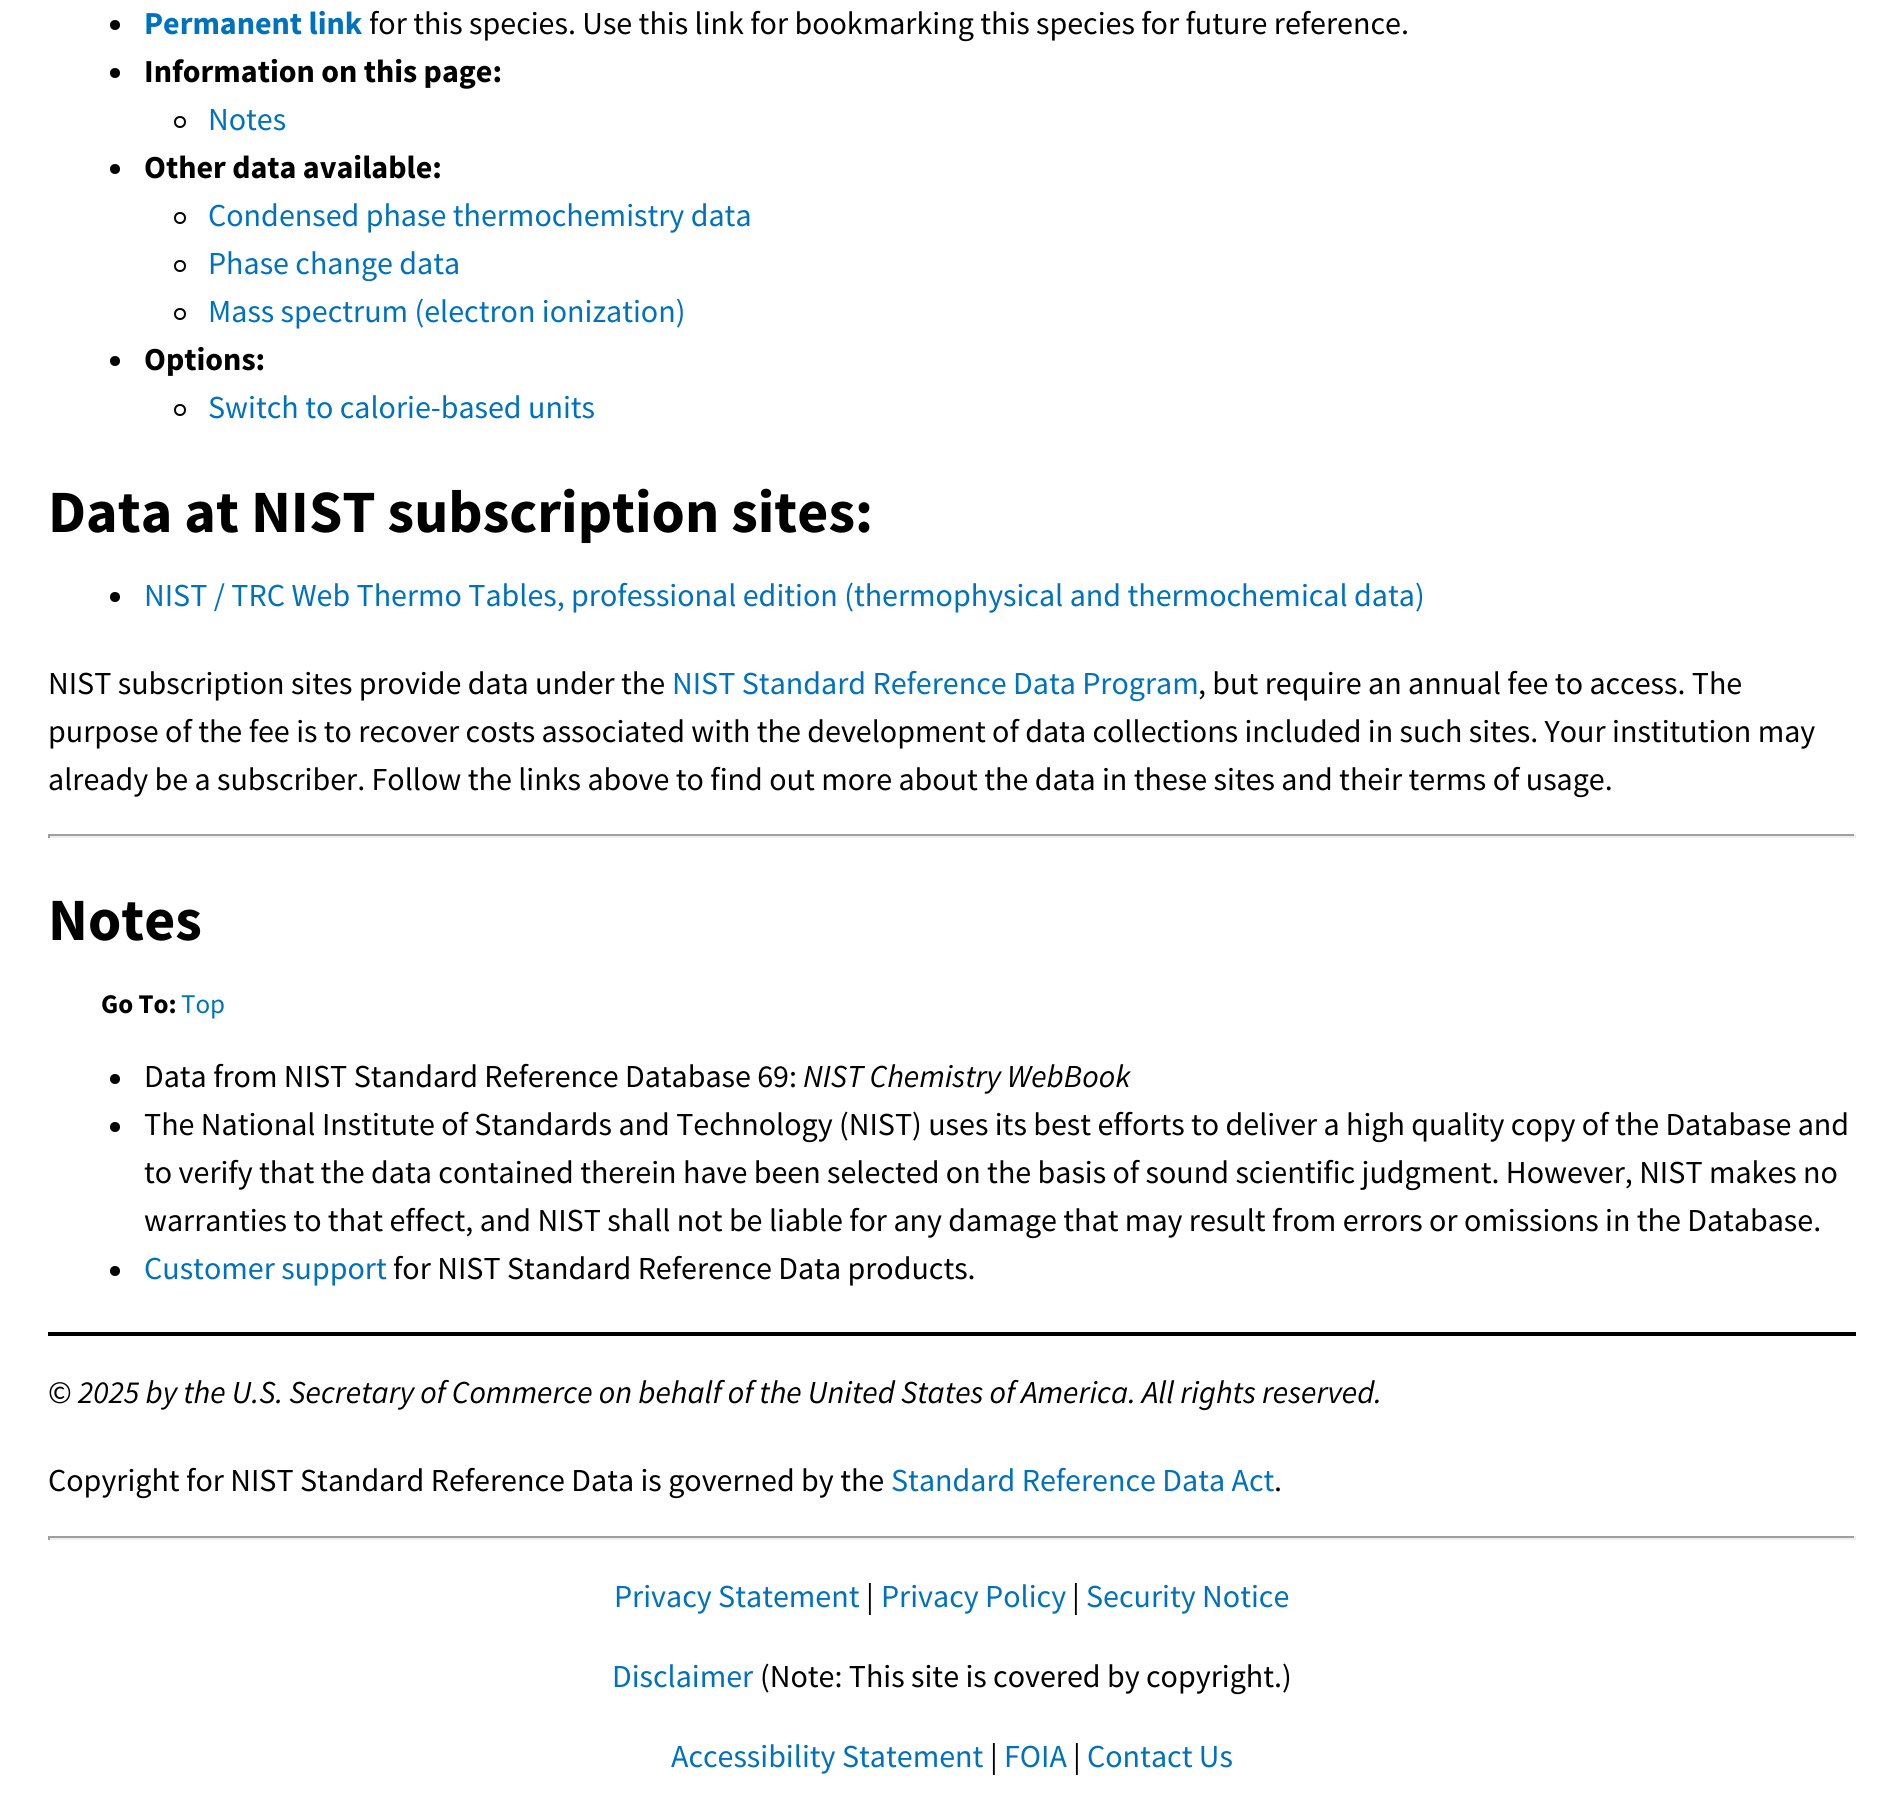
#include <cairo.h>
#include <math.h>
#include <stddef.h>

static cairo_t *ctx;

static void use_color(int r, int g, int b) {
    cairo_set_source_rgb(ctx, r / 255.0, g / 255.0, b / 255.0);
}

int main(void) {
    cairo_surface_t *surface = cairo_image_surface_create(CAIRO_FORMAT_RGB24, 1904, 1812);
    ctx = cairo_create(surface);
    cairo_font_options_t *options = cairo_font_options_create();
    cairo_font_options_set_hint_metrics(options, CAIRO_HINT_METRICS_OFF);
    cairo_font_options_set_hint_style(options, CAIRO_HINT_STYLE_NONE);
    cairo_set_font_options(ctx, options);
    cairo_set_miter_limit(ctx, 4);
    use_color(255, 255, 255);
    cairo_paint(ctx);
    use_color(0, 0, 0);
    cairo_arc(ctx, 115, 25, 5, 0, 2 * M_PI);
    cairo_fill(ctx);
    cairo_select_font_face(ctx, "Source Sans Pro", CAIRO_FONT_SLANT_NORMAL, CAIRO_FONT_WEIGHT_BOLD);
    cairo_set_font_size(ctx, 32);
    use_color(0, 113, 188);
    cairo_move_to(ctx, 144, 34);
    cairo_show_text(ctx, "Permanent link");
    cairo_select_font_face(ctx, "Source Sans Pro", CAIRO_FONT_SLANT_NORMAL, CAIRO_FONT_WEIGHT_NORMAL);
    use_color(0, 0, 0);
    cairo_move_to(ctx, 369, 34);
    cairo_show_text(ctx, "for this species. Use this link for bookmarking this species for future reference.");
    cairo_new_path(ctx);
    cairo_arc(ctx, 115, 73, 5, 0, 2 * M_PI);
    cairo_fill(ctx);
    cairo_select_font_face(ctx, "Source Sans Pro", CAIRO_FONT_SLANT_NORMAL, CAIRO_FONT_WEIGHT_BOLD);
    cairo_move_to(ctx, 144, 82);
    cairo_show_text(ctx, "Information on this page:");
    cairo_new_path(ctx);
    cairo_arc(ctx, 180, 122, 5, 0, 2 * M_PI);
    cairo_stroke(ctx);
    cairo_select_font_face(ctx, "Source Sans Pro", CAIRO_FONT_SLANT_NORMAL, CAIRO_FONT_WEIGHT_NORMAL);
    use_color(0, 113, 188);
    cairo_move_to(ctx, 208, 130);
    cairo_show_text(ctx, "Notes");
    use_color(0, 0, 0);
    cairo_new_path(ctx);
    cairo_arc(ctx, 115, 169, 5, 0, 2 * M_PI);
    cairo_fill(ctx);
    cairo_select_font_face(ctx, "Source Sans Pro", CAIRO_FONT_SLANT_NORMAL, CAIRO_FONT_WEIGHT_BOLD);
    cairo_move_to(ctx, 144, 178);
    cairo_show_text(ctx, "Other data available:");
    cairo_new_path(ctx);
    cairo_arc(ctx, 180, 218, 5, 0, 2 * M_PI);
    cairo_stroke(ctx);
    cairo_select_font_face(ctx, "Source Sans Pro", CAIRO_FONT_SLANT_NORMAL, CAIRO_FONT_WEIGHT_NORMAL);
    use_color(0, 113, 188);
    cairo_move_to(ctx, 208, 226);
    cairo_show_text(ctx, "Condensed phase thermochemistry data");
    cairo_new_path(ctx);
    cairo_arc(ctx, 180, 266, 5, 0, 2 * M_PI);
    use_color(0, 0, 0);
    cairo_stroke(ctx);
    use_color(0, 113, 188);
    cairo_move_to(ctx, 208, 274);
    cairo_show_text(ctx, "Phase change data");
    cairo_new_path(ctx);
    cairo_arc(ctx, 180, 314, 5, 0, 2 * M_PI);
    use_color(0, 0, 0);
    cairo_stroke(ctx);
    use_color(0, 113, 188);
    cairo_move_to(ctx, 208, 322);
    cairo_show_text(ctx, "Mass spectrum (electron ionization)");
    use_color(0, 0, 0);
    cairo_new_path(ctx);
    cairo_arc(ctx, 115, 361, 5, 0, 2 * M_PI);
    cairo_fill(ctx);
    cairo_select_font_face(ctx, "Source Sans Pro", CAIRO_FONT_SLANT_NORMAL, CAIRO_FONT_WEIGHT_BOLD);
    cairo_move_to(ctx, 144, 370);
    cairo_show_text(ctx, "Options:");
    cairo_new_path(ctx);
    cairo_arc(ctx, 180, 410, 5, 0, 2 * M_PI);
    cairo_stroke(ctx);
    cairo_select_font_face(ctx, "Source Sans Pro", CAIRO_FONT_SLANT_NORMAL, CAIRO_FONT_WEIGHT_NORMAL);
    use_color(0, 113, 188);
    cairo_move_to(ctx, 208, 418);
    cairo_show_text(ctx, "Switch to calorie-based units");
    cairo_select_font_face(ctx, "Source Sans Pro", CAIRO_FONT_SLANT_NORMAL, CAIRO_FONT_WEIGHT_BOLD);
    cairo_set_font_size(ctx, 60);
    use_color(0, 0, 0);
    cairo_move_to(ctx, 48, 532);
    cairo_show_text(ctx, "Data at NIST subscription sites:");
    cairo_new_path(ctx);
    cairo_arc(ctx, 115, 597, 5, 0, 2 * M_PI);
    cairo_fill(ctx);
    cairo_select_font_face(ctx, "Source Sans Pro", CAIRO_FONT_SLANT_NORMAL, CAIRO_FONT_WEIGHT_NORMAL);
    cairo_set_font_size(ctx, 32);
    use_color(0, 113, 188);
    cairo_move_to(ctx, 144, 606);
    cairo_show_text(ctx, "NIST / TRC Web Thermo Tables, professional edition (thermophysical and thermochemical data)");
    use_color(0, 0, 0);
    cairo_move_to(ctx, 48, 694);
    cairo_show_text(ctx, "NIST subscription sites provide data under the");
    use_color(0, 113, 188);
    cairo_move_to(ctx, 672, 694);
    cairo_show_text(ctx, "NIST Standard Reference Data Program");
    use_color(0, 0, 0);
    cairo_move_to(ctx, 1198, 694);
    cairo_show_text(ctx, ", but require an annual fee to access. The");
    cairo_move_to(ctx, 48, 742);
    cairo_show_text(ctx, "purpose of the fee is to recover costs associated with the development of data collections included in such sites. Your institution may");
    cairo_move_to(ctx, 48, 790);
    cairo_show_text(ctx, "already be a subscriber. Follow the links above to find out more about the data in these sites and their terms of usage.");
    use_color(159, 159, 159);
    cairo_rectangle(ctx, 48, 834, 1808, 2);
    cairo_fill(ctx);
    use_color(238, 238, 238);
    cairo_rectangle(ctx, 1854, 834, 2, 4);
    cairo_fill(ctx);
    cairo_rectangle(ctx, 48, 836, 1808, 2);
    cairo_fill(ctx);
    use_color(159, 159, 159);
    cairo_rectangle(ctx, 48, 834, 2, 4);
    cairo_fill(ctx);
    cairo_select_font_face(ctx, "Source Sans Pro", CAIRO_FONT_SLANT_NORMAL, CAIRO_FONT_WEIGHT_BOLD);
    cairo_set_font_size(ctx, 60);
    use_color(0, 0, 0);
    cairo_move_to(ctx, 48, 940);
    cairo_show_text(ctx, "Notes");
    cairo_set_font_size(ctx, 27);
    cairo_move_to(ctx, 101, 1013);
    cairo_show_text(ctx, "Go To:");
    cairo_select_font_face(ctx, "Source Sans Pro", CAIRO_FONT_SLANT_NORMAL, CAIRO_FONT_WEIGHT_NORMAL);
    use_color(0, 113, 188);
    cairo_move_to(ctx, 181, 1013);
    cairo_show_text(ctx, "Top");
    use_color(0, 0, 0);
    cairo_new_path(ctx);
    cairo_arc(ctx, 115, 1079, 5, 0, 2 * M_PI);
    cairo_fill(ctx);
    cairo_set_font_size(ctx, 32);
    cairo_move_to(ctx, 144, 1087);
    cairo_show_text(ctx, "Data from NIST Standard Reference Database 69:");
    cairo_select_font_face(ctx, "Source Sans Pro", CAIRO_FONT_SLANT_ITALIC, CAIRO_FONT_WEIGHT_NORMAL);
    cairo_move_to(ctx, 803, 1087);
    cairo_show_text(ctx, "NIST Chemistry WebBook");
    cairo_new_path(ctx);
    cairo_arc(ctx, 115, 1127, 5, 0, 2 * M_PI);
    cairo_fill(ctx);
    cairo_select_font_face(ctx, "Source Sans Pro", CAIRO_FONT_SLANT_NORMAL, CAIRO_FONT_WEIGHT_NORMAL);
    cairo_move_to(ctx, 144, 1135);
    cairo_show_text(ctx, "The National Institute of Standards and Technology (NIST) uses its best efforts to deliver a high quality copy of the Database and");
    cairo_move_to(ctx, 144, 1183);
    cairo_show_text(ctx, "to verify that the data contained therein have been selected on the basis of sound scientific judgment. However, NIST makes no");
    cairo_move_to(ctx, 144, 1231);
    cairo_show_text(ctx, "warranties to that effect, and NIST shall not be liable for any damage that may result from errors or omissions in the Database.");
    cairo_new_path(ctx);
    cairo_arc(ctx, 115, 1271, 5, 0, 2 * M_PI);
    cairo_fill(ctx);
    use_color(0, 113, 188);
    cairo_move_to(ctx, 144, 1279);
    cairo_show_text(ctx, "Customer support");
    use_color(0, 0, 0);
    cairo_move_to(ctx, 393, 1279);
    cairo_show_text(ctx, "for NIST Standard Reference Data products.");
    cairo_rectangle(ctx, 48, 1332, 1808, 4);
    cairo_fill(ctx);
    cairo_move_to(ctx, 48, 1403);
    cairo_show_text(ctx, "©");
    cairo_select_font_face(ctx, "Source Sans Pro", CAIRO_FONT_SLANT_ITALIC, CAIRO_FONT_WEIGHT_NORMAL);
    cairo_move_to(ctx, 78, 1403);
    cairo_show_text(ctx, "2025 by the U.S. Secretary of Commerce on behalf of the United States of America. All rights reserved.");
    cairo_select_font_face(ctx, "Source Sans Pro", CAIRO_FONT_SLANT_NORMAL, CAIRO_FONT_WEIGHT_NORMAL);
    cairo_move_to(ctx, 48, 1491);
    cairo_show_text(ctx, "Copyright for NIST Standard Reference Data is governed by the");
    use_color(0, 113, 188);
    cairo_move_to(ctx, 891, 1491);
    cairo_show_text(ctx, "Standard Reference Data Act");
    use_color(0, 0, 0);
    cairo_move_to(ctx, 1274, 1491);
    cairo_show_text(ctx, ".");
    use_color(159, 159, 159);
    cairo_rectangle(ctx, 48, 1536, 1808, 2);
    cairo_fill(ctx);
    use_color(238, 238, 238);
    cairo_rectangle(ctx, 1854, 1536, 2, 4);
    cairo_fill(ctx);
    cairo_rectangle(ctx, 48, 1538, 1808, 2);
    cairo_fill(ctx);
    use_color(159, 159, 159);
    cairo_rectangle(ctx, 48, 1536, 2, 4);
    cairo_fill(ctx);
    use_color(0, 113, 188);
    cairo_move_to(ctx, 614, 1607);
    cairo_show_text(ctx, "Privacy Statement");
    use_color(0, 0, 0);
    cairo_move_to(ctx, 866, 1607);
    cairo_show_text(ctx, "|");
    use_color(0, 113, 188);
    cairo_move_to(ctx, 881, 1607);
    cairo_show_text(ctx, "Privacy Policy");
    use_color(0, 0, 0);
    cairo_move_to(ctx, 1072, 1607);
    cairo_show_text(ctx, "|");
    use_color(0, 113, 188);
    cairo_move_to(ctx, 1086, 1607);
    cairo_show_text(ctx, "Security Notice");
    cairo_move_to(ctx, 612, 1687);
    cairo_show_text(ctx, "Disclaimer");
    use_color(0, 0, 0);
    cairo_move_to(ctx, 760, 1687);
    cairo_show_text(ctx, "(Note: This site is covered by copyright.)");
    use_color(0, 113, 188);
    cairo_move_to(ctx, 671, 1767);
    cairo_show_text(ctx, "Accessibility Statement");
    use_color(0, 0, 0);
    cairo_move_to(ctx, 990, 1767);
    cairo_show_text(ctx, "|");
    use_color(0, 113, 188);
    cairo_move_to(ctx, 1004, 1767);
    cairo_show_text(ctx, "FOIA");
    use_color(0, 0, 0);
    cairo_move_to(ctx, 1073, 1767);
    cairo_show_text(ctx, "|");
    use_color(0, 113, 188);
    cairo_move_to(ctx, 1087, 1767);
    cairo_show_text(ctx, "Contact Us");
    cairo_surface_write_to_png(surface, "result.png");
    cairo_font_options_destroy(options);
    cairo_destroy(ctx);
    cairo_surface_destroy(surface);
    return 0;
}
